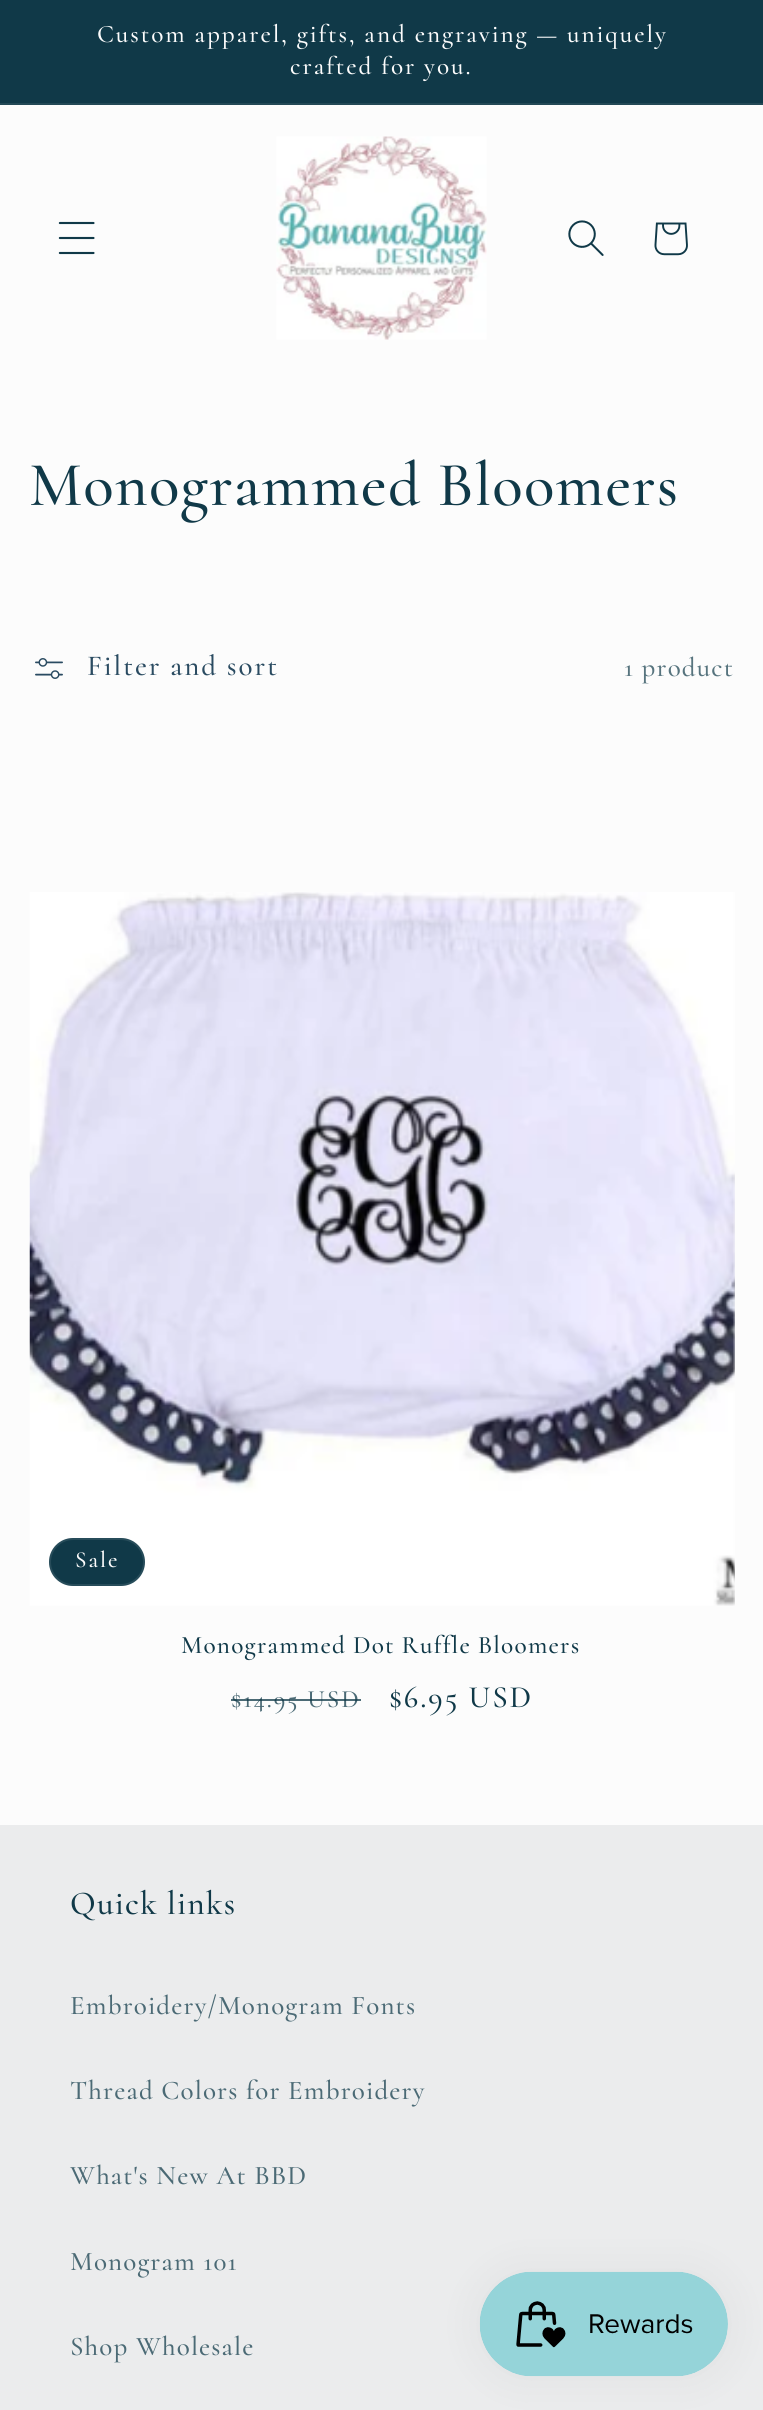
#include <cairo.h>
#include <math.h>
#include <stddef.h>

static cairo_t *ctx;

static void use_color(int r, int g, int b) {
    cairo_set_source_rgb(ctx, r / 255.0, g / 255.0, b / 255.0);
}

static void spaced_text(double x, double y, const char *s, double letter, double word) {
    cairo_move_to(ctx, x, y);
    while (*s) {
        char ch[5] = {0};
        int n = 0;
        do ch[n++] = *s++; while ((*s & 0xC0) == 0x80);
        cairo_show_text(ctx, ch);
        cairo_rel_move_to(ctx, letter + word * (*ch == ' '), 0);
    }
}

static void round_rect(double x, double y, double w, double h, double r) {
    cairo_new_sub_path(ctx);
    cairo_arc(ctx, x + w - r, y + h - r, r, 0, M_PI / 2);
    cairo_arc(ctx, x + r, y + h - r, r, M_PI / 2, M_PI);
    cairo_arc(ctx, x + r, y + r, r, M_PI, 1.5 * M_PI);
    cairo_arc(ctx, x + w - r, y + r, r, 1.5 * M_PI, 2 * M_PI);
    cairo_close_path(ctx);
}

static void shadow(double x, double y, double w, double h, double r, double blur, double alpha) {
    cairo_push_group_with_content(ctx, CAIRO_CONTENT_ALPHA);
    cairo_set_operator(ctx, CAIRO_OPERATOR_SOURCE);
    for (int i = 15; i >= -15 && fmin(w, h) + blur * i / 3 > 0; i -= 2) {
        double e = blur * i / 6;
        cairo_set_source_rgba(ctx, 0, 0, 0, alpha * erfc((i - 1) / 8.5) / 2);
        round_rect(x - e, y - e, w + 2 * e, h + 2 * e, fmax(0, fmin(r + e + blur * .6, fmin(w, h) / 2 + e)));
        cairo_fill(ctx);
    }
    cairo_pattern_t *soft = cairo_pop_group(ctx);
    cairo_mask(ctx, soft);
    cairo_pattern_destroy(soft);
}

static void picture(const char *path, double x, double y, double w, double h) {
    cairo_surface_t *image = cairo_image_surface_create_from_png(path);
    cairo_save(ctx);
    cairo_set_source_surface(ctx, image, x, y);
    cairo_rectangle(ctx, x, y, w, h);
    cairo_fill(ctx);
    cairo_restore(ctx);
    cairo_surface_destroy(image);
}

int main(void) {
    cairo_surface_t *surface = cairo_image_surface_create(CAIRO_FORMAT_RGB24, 763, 2410);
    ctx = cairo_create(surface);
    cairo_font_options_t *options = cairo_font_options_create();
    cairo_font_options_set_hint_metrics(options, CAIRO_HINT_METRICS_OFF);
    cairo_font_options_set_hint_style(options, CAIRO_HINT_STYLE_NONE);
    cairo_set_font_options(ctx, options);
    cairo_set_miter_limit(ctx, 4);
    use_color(252, 252, 252);
    cairo_paint(ctx);
    use_color(16, 57, 72);
    cairo_rectangle(ctx, 0, 0, 763, 103);
    cairo_fill(ctx);
    use_color(35, 73, 86);
    cairo_rectangle(ctx, 0, 103, 763, 2);
    cairo_fill(ctx);
    cairo_select_font_face(ctx, "Cormorant Medium", CAIRO_FONT_SLANT_NORMAL, CAIRO_FONT_WEIGHT_NORMAL);
    cairo_set_font_size(ctx, 25.2);
    use_color(252, 252, 252);
    spaced_text(97, 42, "Custom apparel, gifts, and engraving — uniquely", 1.95, 0);
    spaced_text(290, 74, "crafted for you.", 1.95, 0);
    picture("img1.png", 58, 221, 37, 34);
    picture("img2.png", 276, 136, 211, 204);
    picture("img3.png", 568, 220, 36, 36);
    picture("img4.png", 654, 222, 34, 34);
    cairo_set_font_size(ctx, 63);
    use_color(16, 57, 72);
    spaced_text(29, 505, "Monogrammed Bloomers", 1.25, 0);
    picture("img5.png", 35, 658, 28, 21);
    cairo_set_font_size(ctx, 29);
    use_color(42, 75, 97);
    spaced_text(87, 675, "Filter and sort", 1.95, 0);
    cairo_set_font_size(ctx, 27);
    use_color(87, 116, 126);
    spaced_text(624, 676, "1 product", 1.15, 0);
    picture("img6.png", 29, 892, 706, 714);
    use_color(16, 57, 72);
    round_rect(49, 1538, 96, 48, 24);
    cairo_fill(ctx);
    round_rect(50, 1539, 94, 46, 23);
    cairo_set_source_rgba(ctx, 0.988, 0.988, 0.988, 0.1);
    cairo_stroke(ctx);
    cairo_set_font_size(ctx, 23);
    use_color(252, 252, 252);
    spaced_text(75, 1567, "Sale", 1.95, 0);
    cairo_set_font_size(ctx, 25.2);
    use_color(16, 57, 72);
    spaced_text(181, 1653, "Monogrammed Dot Ruffle Bloomers", 1.25, -0.5);
    cairo_set_font_size(ctx, 25);
    use_color(75, 106, 117);
    spaced_text(231, 1707, "$14.95 USD", 1.95, 0);
    cairo_set_source_rgba(ctx, 0.063, 0.224, 0.282, 0.75);
    cairo_rectangle(ctx, 231, 1699, 130, 2);
    cairo_fill(ctx);
    cairo_set_font_size(ctx, 31);
    use_color(16, 57, 72);
    spaced_text(389, 1707, "$6.95 USD", 1.95, 0);
    use_color(235, 236, 237);
    cairo_rectangle(ctx, 0, 1825, 763, 585);
    cairo_fill(ctx);
    cairo_set_font_size(ctx, 33.5);
    use_color(16, 57, 72);
    spaced_text(70, 1914, "Quick links", 1.25, 0);
    cairo_set_font_size(ctx, 27);
    use_color(75, 106, 117);
    spaced_text(70, 2014, "Embroidery/Monogram Fonts", 1.15, 0);
    spaced_text(70, 2099, "Thread Colors for Embroidery", 1.15, 0);
    spaced_text(70, 2184, "What's New At BBD", 1.15, 0);
    spaced_text(70, 2270, "Monogram 101", 1.15, 0);
    spaced_text(70, 2355, "Shop Wholesale", 1.15, 0);
    use_color(0, 0, 0);
    shadow(480, 2272, 248, 105, 52.5, 22, 0.05);
    picture("img7.png", 479, 2271, 249, 106);
    cairo_surface_write_to_png(surface, "result.png");
    cairo_font_options_destroy(options);
    cairo_destroy(ctx);
    cairo_surface_destroy(surface);
    return 0;
}
